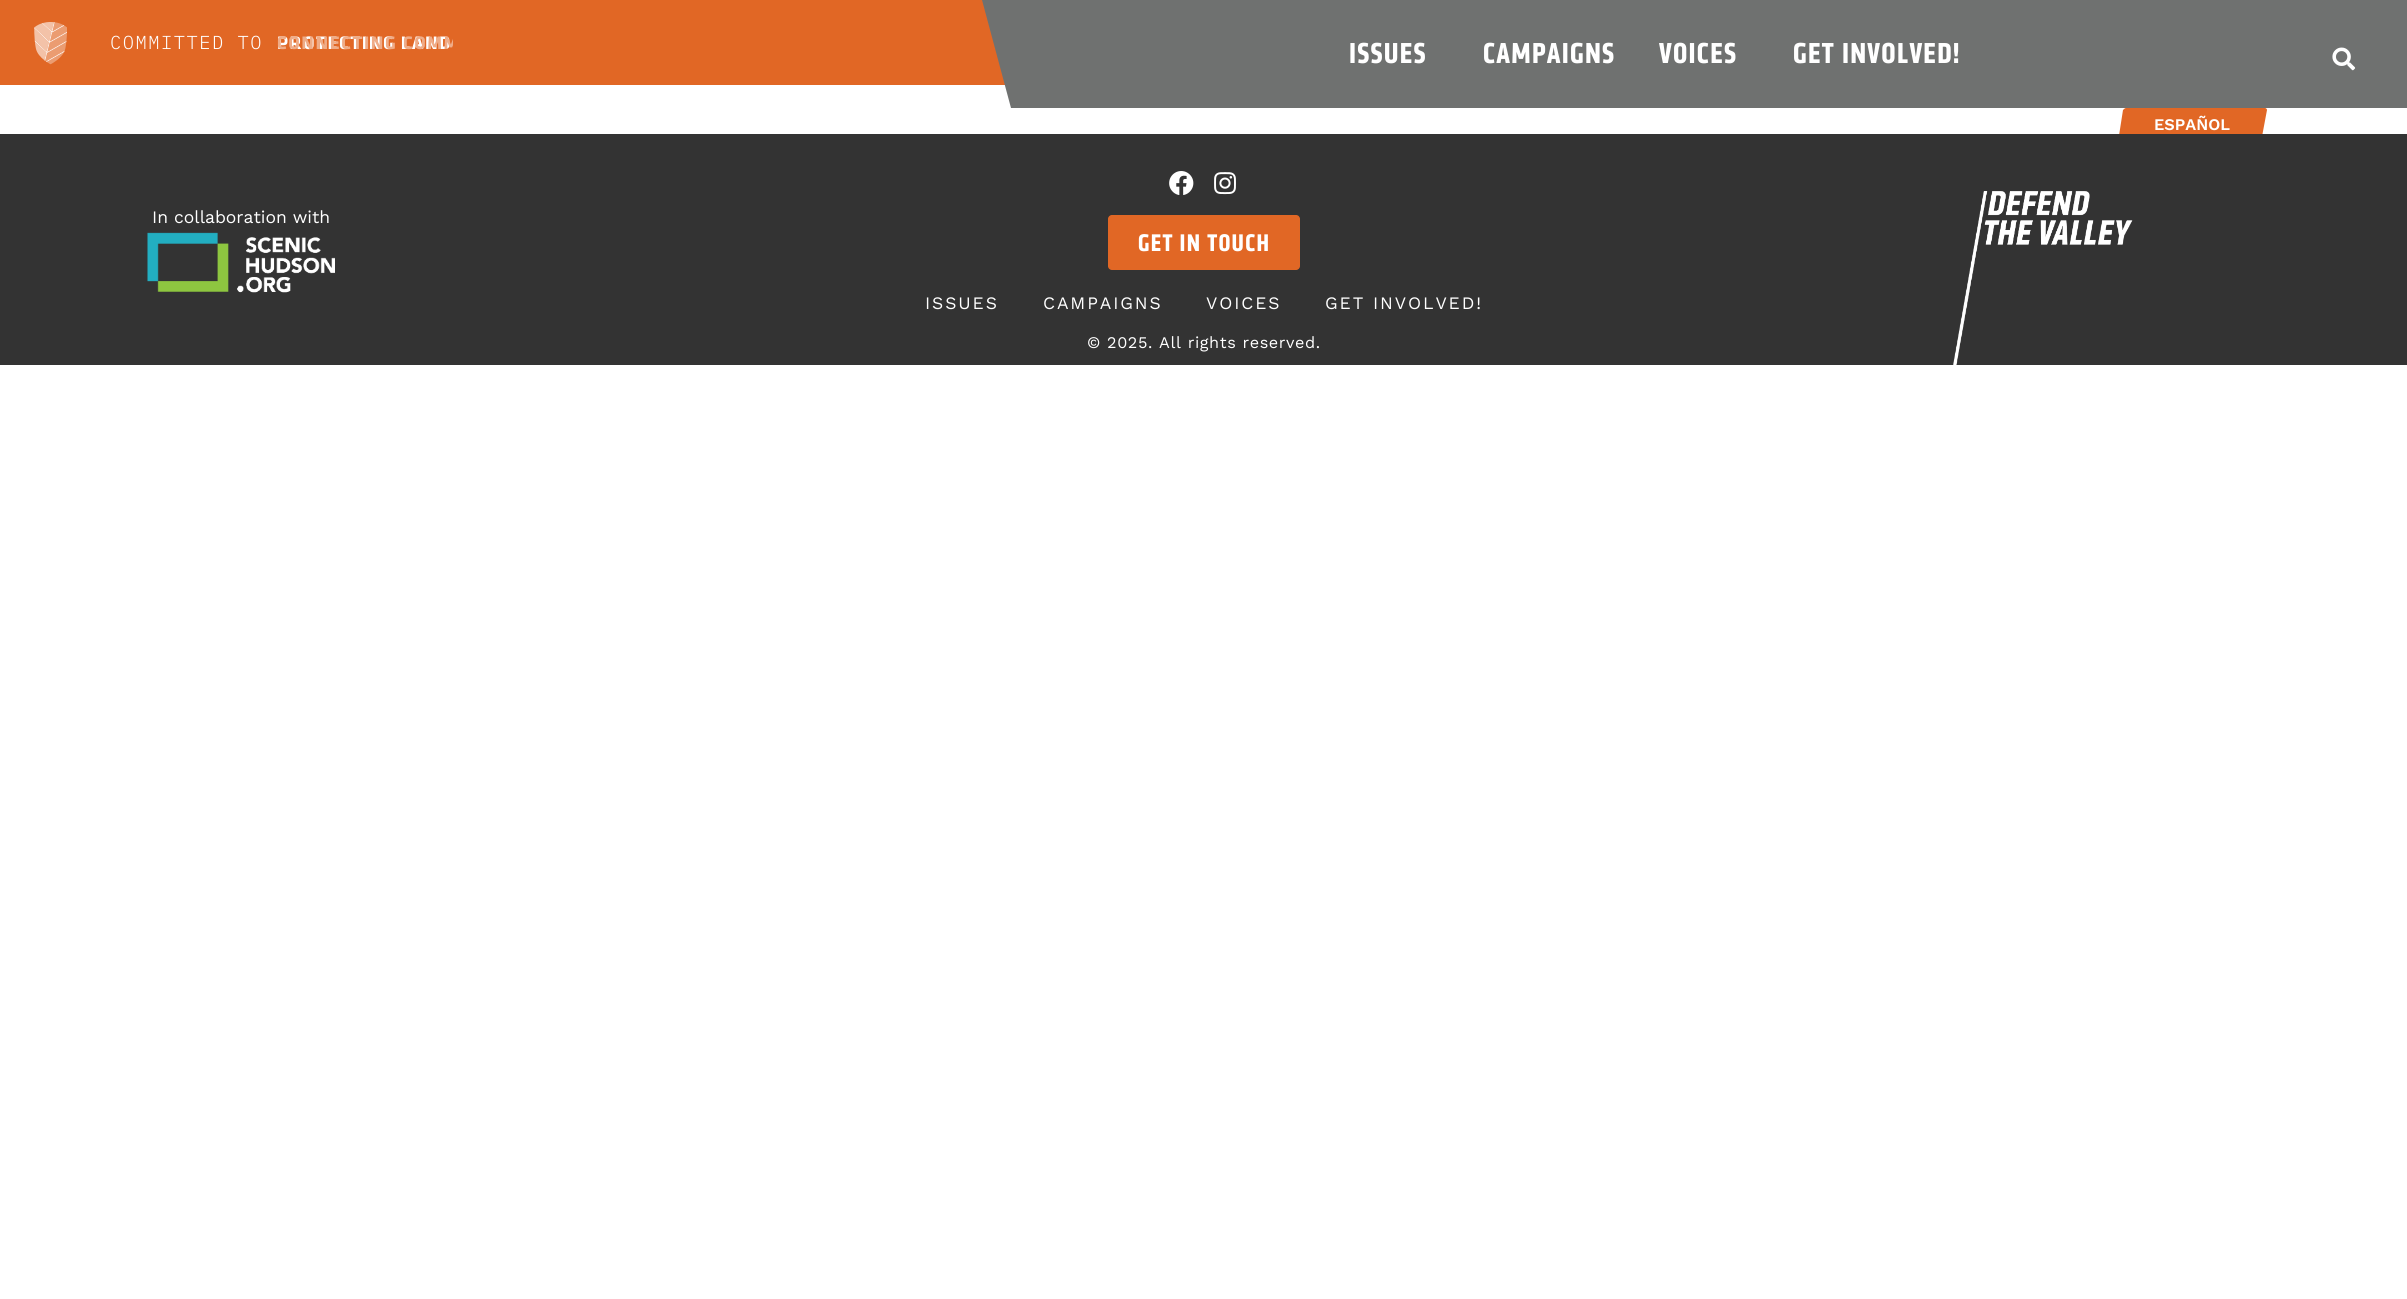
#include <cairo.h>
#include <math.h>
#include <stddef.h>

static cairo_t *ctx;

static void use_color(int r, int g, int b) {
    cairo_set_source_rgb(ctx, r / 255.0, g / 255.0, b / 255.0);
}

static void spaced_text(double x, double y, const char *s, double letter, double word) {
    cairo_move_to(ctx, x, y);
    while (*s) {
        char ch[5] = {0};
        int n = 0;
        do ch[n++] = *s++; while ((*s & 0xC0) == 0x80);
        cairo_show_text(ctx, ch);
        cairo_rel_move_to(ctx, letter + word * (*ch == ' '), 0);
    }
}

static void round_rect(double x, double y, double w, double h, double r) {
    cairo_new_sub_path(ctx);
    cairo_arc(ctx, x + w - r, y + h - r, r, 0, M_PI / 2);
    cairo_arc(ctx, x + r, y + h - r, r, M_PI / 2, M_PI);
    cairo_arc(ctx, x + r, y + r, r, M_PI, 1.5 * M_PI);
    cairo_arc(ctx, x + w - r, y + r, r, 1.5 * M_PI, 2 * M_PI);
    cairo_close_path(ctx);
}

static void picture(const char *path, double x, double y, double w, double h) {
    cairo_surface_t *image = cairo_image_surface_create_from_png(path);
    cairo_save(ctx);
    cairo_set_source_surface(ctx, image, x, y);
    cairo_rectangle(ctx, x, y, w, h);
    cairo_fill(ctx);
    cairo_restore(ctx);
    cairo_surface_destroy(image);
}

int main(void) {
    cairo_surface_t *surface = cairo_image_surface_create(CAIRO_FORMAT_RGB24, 2407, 1299);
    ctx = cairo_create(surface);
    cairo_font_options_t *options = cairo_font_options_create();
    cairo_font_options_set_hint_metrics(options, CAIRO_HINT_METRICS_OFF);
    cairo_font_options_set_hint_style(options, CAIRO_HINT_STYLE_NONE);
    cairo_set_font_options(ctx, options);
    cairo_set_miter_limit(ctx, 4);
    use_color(255, 255, 255);
    cairo_paint(ctx);
    use_color(225, 103, 37);
    cairo_rectangle(ctx, 0, 0, 1005, 85);
    cairo_fill(ctx);
    picture("img1.png", 34, 22, 33, 43);
    cairo_select_font_face(ctx, "IBM Plex Mono Light", CAIRO_FONT_SLANT_NORMAL, CAIRO_FONT_WEIGHT_NORMAL);
    cairo_set_font_size(ctx, 18.75);
    use_color(255, 255, 255);
    spaced_text(110, 49, "COMMITTED TO", 1.5, 0);
    cairo_select_font_face(ctx, "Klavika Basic", CAIRO_FONT_SLANT_NORMAL, CAIRO_FONT_WEIGHT_BOLD);
    spaced_text(277, 49, "PROTECTING LAND", 1.5, 0);
    cairo_save(ctx);
    cairo_rectangle(ctx, 276, 28, 177, 30);
    cairo_clip(ctx);
    use_color(239, 172, 136);
    spaced_text(277, 49, "CONNECTING COMM", 1.5, 0);
    cairo_restore(ctx);
    use_color(111, 113, 112);
    cairo_rectangle(ctx, 2379, 0, 28, 108);
    cairo_fill(ctx);
    cairo_new_path(ctx);
    cairo_move_to(ctx, 982, 0);
    cairo_line_to(ctx, 2379, 0);
    cairo_line_to(ctx, 2407, 108);
    cairo_line_to(ctx, 1011, 108);
    cairo_close_path(ctx);
    cairo_fill(ctx);
    cairo_select_font_face(ctx, "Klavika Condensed", CAIRO_FONT_SLANT_NORMAL, CAIRO_FONT_WEIGHT_BOLD);
    cairo_set_font_size(ctx, 30);
    use_color(255, 255, 255);
    spaced_text(1349, 63, "ISSUES", 1.25, 0);
    spaced_text(1483, 63, "CAMPAIGNS", 1.25, 0);
    spaced_text(1659, 63, "VOICES", 1.25, 0);
    spaced_text(1793, 63, "GET INVOLVED!", 1.25, 0);
    picture("img2.png", 2332, 47, 24, 24);
    use_color(225, 103, 37);
    cairo_new_path(ctx);
    cairo_move_to(ctx, 2126, 108);
    cairo_line_to(ctx, 2265, 108);
    cairo_curve_to(ctx, 2266, 108, 2267, 109, 2267, 110);
    cairo_line_to(ctx, 2261, 142);
    cairo_curve_to(ctx, 2261, 144, 2260, 145, 2258, 145);
    cairo_line_to(ctx, 2120, 145);
    cairo_curve_to(ctx, 2118, 145, 2117, 144, 2118, 142);
    cairo_line_to(ctx, 2123, 110);
    cairo_curve_to(ctx, 2124, 109, 2125, 108, 2126, 108);
    cairo_close_path(ctx);
    cairo_fill(ctx);
    cairo_select_font_face(ctx, "Work Sans SemiBold", CAIRO_FONT_SLANT_NORMAL, CAIRO_FONT_WEIGHT_NORMAL);
    cairo_set_font_size(ctx, 16.25);
    use_color(255, 255, 255);
    cairo_move_to(ctx, 2154, 130);
    cairo_show_text(ctx, "ESPAÑOL");
    use_color(51, 51, 51);
    cairo_rectangle(ctx, 0, 134, 2407, 231);
    cairo_fill(ctx);
    cairo_select_font_face(ctx, "Work Sans", CAIRO_FONT_SLANT_NORMAL, CAIRO_FONT_WEIGHT_NORMAL);
    cairo_set_font_size(ctx, 17.5);
    use_color(255, 255, 255);
    cairo_move_to(ctx, 152, 223);
    cairo_show_text(ctx, "In collaboration with");
    picture("img3.png", 147, 232, 188, 61);
    picture("img4.png", 1953, 191, 180, 174);
    picture("img5.png", 1169, 171, 25, 24);
    picture("img6.png", 1214, 172, 22, 23);
    use_color(225, 103, 37);
    round_rect(1108, 215, 192, 55, 4);
    cairo_fill(ctx);
    cairo_select_font_face(ctx, "Klavika Condensed", CAIRO_FONT_SLANT_NORMAL, CAIRO_FONT_WEIGHT_BOLD);
    cairo_set_font_size(ctx, 25);
    use_color(255, 255, 255);
    spaced_text(1138, 251, "GET IN TOUCH", 1.25, 0);
    cairo_select_font_face(ctx, "Work Sans", CAIRO_FONT_SLANT_NORMAL, CAIRO_FONT_WEIGHT_NORMAL);
    cairo_set_font_size(ctx, 17.5);
    spaced_text(925, 309, "ISSUES", 1.9, 0);
    spaced_text(1043, 309, "CAMPAIGNS", 1.9, 0);
    spaced_text(1206, 309, "VOICES", 1.9, 0);
    spaced_text(1325, 309, "GET INVOLVED!", 1.9, 0);
    cairo_set_font_size(ctx, 16.25);
    spaced_text(1087, 348, "© 2025. All rights reserved.", 0.6, 0);
    cairo_surface_write_to_png(surface, "result.png");
    cairo_font_options_destroy(options);
    cairo_destroy(ctx);
    cairo_surface_destroy(surface);
    return 0;
}
